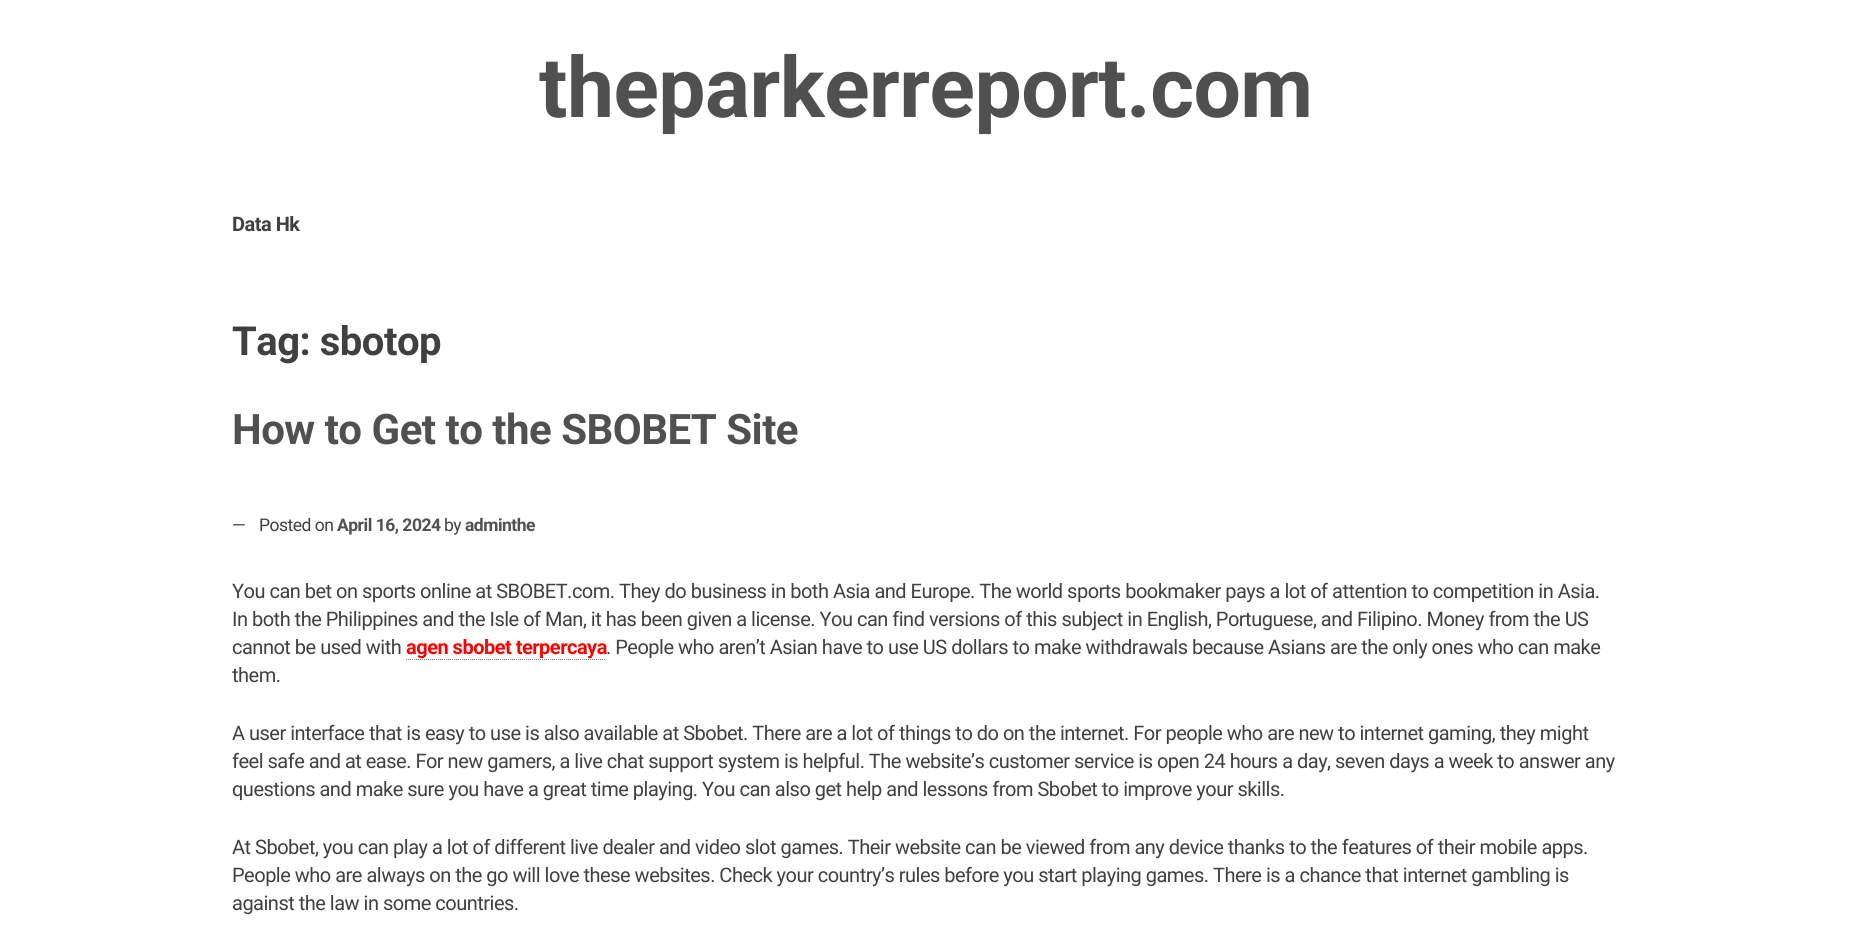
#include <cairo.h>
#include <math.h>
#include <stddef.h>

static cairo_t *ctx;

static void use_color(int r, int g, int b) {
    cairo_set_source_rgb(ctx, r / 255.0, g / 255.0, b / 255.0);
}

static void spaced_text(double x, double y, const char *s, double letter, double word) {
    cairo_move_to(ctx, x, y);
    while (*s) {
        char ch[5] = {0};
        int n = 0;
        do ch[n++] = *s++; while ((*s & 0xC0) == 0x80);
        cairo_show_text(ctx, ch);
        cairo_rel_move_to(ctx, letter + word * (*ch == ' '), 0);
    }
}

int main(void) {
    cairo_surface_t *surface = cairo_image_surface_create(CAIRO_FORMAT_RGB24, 1851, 932);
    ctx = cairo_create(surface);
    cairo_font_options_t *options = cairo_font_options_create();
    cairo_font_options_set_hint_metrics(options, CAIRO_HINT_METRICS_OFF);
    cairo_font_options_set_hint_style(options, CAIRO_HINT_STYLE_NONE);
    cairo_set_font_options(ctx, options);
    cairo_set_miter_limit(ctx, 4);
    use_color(255, 255, 255);
    cairo_paint(ctx);
    cairo_select_font_face(ctx, "Roboto", CAIRO_FONT_SLANT_NORMAL, CAIRO_FONT_WEIGHT_BOLD);
    cairo_set_font_size(ctx, 84);
    use_color(80, 80, 80);
    spaced_text(539, 117, "theparkerreport.com", -0.5, 0);
    cairo_set_font_size(ctx, 20);
    use_color(64, 64, 64);
    spaced_text(232, 231, "Data Hk", -0.5, 0);
    cairo_set_font_size(ctx, 40);
    spaced_text(232, 355, "Tag: sbotop", -0.5, 0);
    cairo_set_font_size(ctx, 42);
    use_color(80, 80, 80);
    spaced_text(232, 444, "How to Get to the SBOBET Site", -0.5, 0);
    cairo_select_font_face(ctx, "Roboto", CAIRO_FONT_SLANT_NORMAL, CAIRO_FONT_WEIGHT_NORMAL);
    cairo_set_font_size(ctx, 17.5);
    use_color(64, 64, 64);
    spaced_text(232, 531, "—", -0.5, 0);
    spaced_text(259, 531, "Posted on", -0.5, 0);
    cairo_select_font_face(ctx, "Roboto", CAIRO_FONT_SLANT_NORMAL, CAIRO_FONT_WEIGHT_BOLD);
    use_color(80, 80, 80);
    spaced_text(337, 531, "April 16, 2024", -0.5, 0);
    cairo_select_font_face(ctx, "Roboto", CAIRO_FONT_SLANT_NORMAL, CAIRO_FONT_WEIGHT_NORMAL);
    use_color(64, 64, 64);
    spaced_text(444, 531, "by", -0.5, 0);
    cairo_select_font_face(ctx, "Roboto", CAIRO_FONT_SLANT_NORMAL, CAIRO_FONT_WEIGHT_BOLD);
    use_color(80, 80, 80);
    spaced_text(465, 531, "adminthe", -0.5, 0);
    cairo_select_font_face(ctx, "Roboto", CAIRO_FONT_SLANT_NORMAL, CAIRO_FONT_WEIGHT_NORMAL);
    cairo_set_font_size(ctx, 20);
    use_color(64, 64, 64);
    spaced_text(232, 598, "You can bet on sports online at SBOBET.com. They do business in both Asia and Europe. The world sports bookmaker pays a lot of attention to competition in Asia.", -0.5, 0);
    spaced_text(232, 626, "In both the Philippines and the Isle of Man, it has been given a license. You can find versions of this subject in English, Portuguese, and Filipino. Money from the US", -0.5, 0);
    spaced_text(232, 654, "cannot be used with", -0.5, 0);
    cairo_select_font_face(ctx, "Roboto", CAIRO_FONT_SLANT_NORMAL, CAIRO_FONT_WEIGHT_BOLD);
    use_color(255, 0, 0);
    spaced_text(406, 654, "agen sbobet terpercaya", -0.5, 0);
    cairo_new_path(ctx);
    cairo_move_to(ctx, 406, 659.5);
    cairo_line_to(ctx, 606, 659.5);
    use_color(120, 120, 120);
    cairo_set_line_width(ctx, 1);
    cairo_set_dash(ctx, (double[]){1, 1}, 2, 0);
    cairo_stroke(ctx);
    cairo_select_font_face(ctx, "Roboto", CAIRO_FONT_SLANT_NORMAL, CAIRO_FONT_WEIGHT_NORMAL);
    use_color(64, 64, 64);
    spaced_text(606, 654, ". People who aren’t Asian have to use US dollars to make withdrawals because Asians are the only ones who can make", -0.5, 0);
    spaced_text(232, 682, "them.", -0.5, 0);
    spaced_text(232, 740, "A user interface that is easy to use is also available at Sbobet. There are a lot of things to do on the internet. For people who are new to internet gaming, they might", -0.5, 0);
    spaced_text(232, 768, "feel safe and at ease. For new gamers, a live chat support system is helpful. The website’s customer service is open 24 hours a day, seven days a week to answer any", -0.5, 0);
    spaced_text(232, 796, "questions and make sure you have a great time playing. You can also get help and lessons from Sbobet to improve your skills.", -0.5, 0);
    spaced_text(232, 854, "At Sbobet, you can play a lot of different live dealer and video slot games. Their website can be viewed from any device thanks to the features of their mobile apps.", -0.5, 0);
    spaced_text(232, 882, "People who are always on the go will love these websites. Check your country’s rules before you start playing games. There is a chance that internet gambling is", -0.5, 0);
    spaced_text(232, 910, "against the law in some countries.", -0.5, 0);
    cairo_surface_write_to_png(surface, "result.png");
    cairo_font_options_destroy(options);
    cairo_destroy(ctx);
    cairo_surface_destroy(surface);
    return 0;
}
